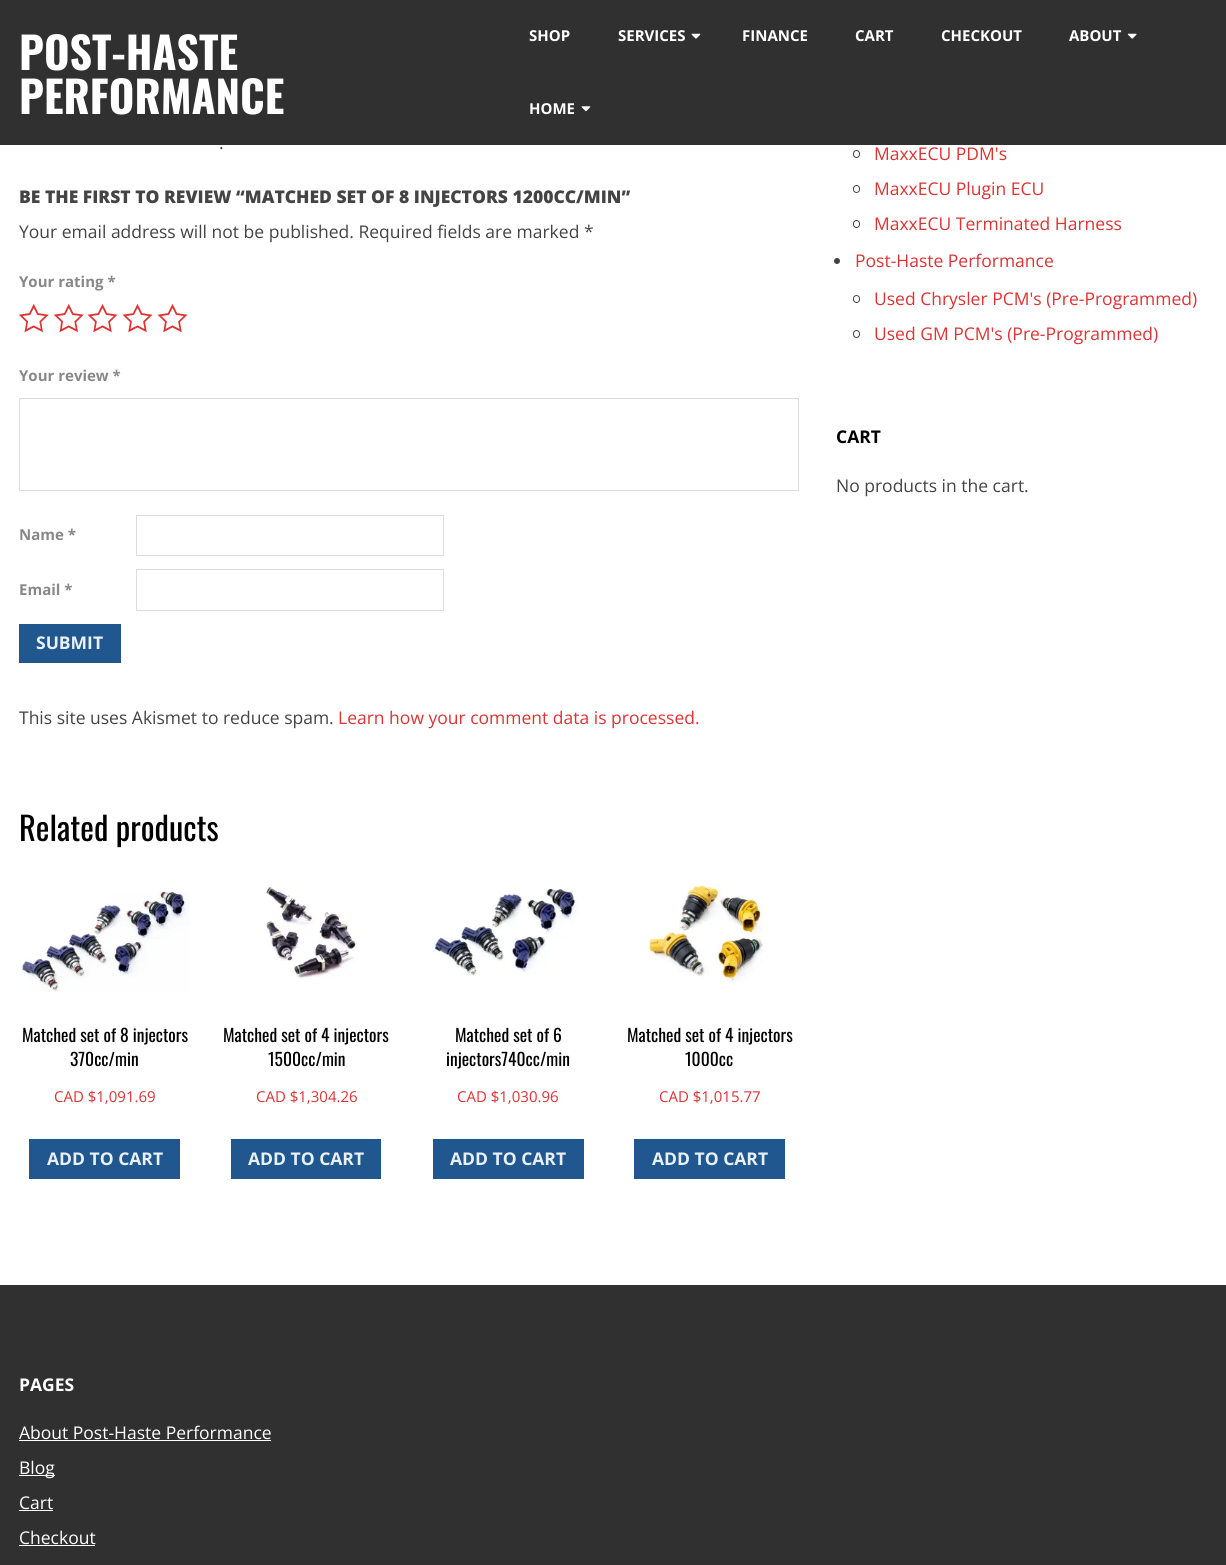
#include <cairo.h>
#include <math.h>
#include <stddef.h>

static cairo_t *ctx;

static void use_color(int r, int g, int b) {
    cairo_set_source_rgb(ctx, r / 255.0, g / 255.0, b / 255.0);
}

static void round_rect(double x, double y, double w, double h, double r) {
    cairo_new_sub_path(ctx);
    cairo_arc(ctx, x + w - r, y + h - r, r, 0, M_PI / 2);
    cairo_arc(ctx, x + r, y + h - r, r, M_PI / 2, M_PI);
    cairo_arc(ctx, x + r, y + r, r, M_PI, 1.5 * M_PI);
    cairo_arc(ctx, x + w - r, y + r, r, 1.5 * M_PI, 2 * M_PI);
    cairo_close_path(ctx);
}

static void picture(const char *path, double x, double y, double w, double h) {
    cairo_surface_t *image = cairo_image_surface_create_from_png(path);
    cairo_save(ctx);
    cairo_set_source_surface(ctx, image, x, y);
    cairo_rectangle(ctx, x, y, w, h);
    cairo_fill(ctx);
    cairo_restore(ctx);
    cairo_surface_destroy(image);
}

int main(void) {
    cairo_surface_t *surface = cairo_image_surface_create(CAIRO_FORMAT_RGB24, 1226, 1565);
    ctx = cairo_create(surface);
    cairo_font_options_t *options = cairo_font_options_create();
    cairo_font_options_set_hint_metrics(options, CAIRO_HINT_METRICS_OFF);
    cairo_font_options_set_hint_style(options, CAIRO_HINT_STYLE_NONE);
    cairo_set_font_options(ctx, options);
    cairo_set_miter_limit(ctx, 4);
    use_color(255, 255, 255);
    cairo_paint(ctx);
    use_color(48, 48, 48);
    cairo_rectangle(ctx, 0, 0, 1226, 145);
    cairo_fill(ctx);
    cairo_select_font_face(ctx, "Oswald", CAIRO_FONT_SLANT_NORMAL, CAIRO_FONT_WEIGHT_BOLD);
    cairo_set_font_size(ctx, 43.75);
    use_color(255, 255, 255);
    cairo_move_to(ctx, 19, 70);
    cairo_show_text(ctx, "POST-HASTE");
    cairo_move_to(ctx, 19, 114);
    cairo_show_text(ctx, "PERFORMANCE");
    cairo_select_font_face(ctx, "Open Sans", CAIRO_FONT_SLANT_NORMAL, CAIRO_FONT_WEIGHT_BOLD);
    cairo_set_font_size(ctx, 15);
    cairo_move_to(ctx, 529, 41);
    cairo_show_text(ctx, "SHOP");
    cairo_move_to(ctx, 618, 41);
    cairo_show_text(ctx, "SERVICES");
    picture("img1.png", 691, 33, 10, 6);
    cairo_move_to(ctx, 742, 41);
    cairo_show_text(ctx, "FINANCE");
    cairo_move_to(ctx, 855, 41);
    cairo_show_text(ctx, "CART");
    cairo_move_to(ctx, 941, 41);
    cairo_show_text(ctx, "CHECKOUT");
    cairo_move_to(ctx, 1069, 41);
    cairo_show_text(ctx, "ABOUT");
    picture("img2.png", 1127, 33, 10, 6);
    cairo_move_to(ctx, 529, 114);
    cairo_show_text(ctx, "HOME");
    picture("img3.png", 581, 106, 10, 6);
    cairo_select_font_face(ctx, "Open Sans", CAIRO_FONT_SLANT_NORMAL, CAIRO_FONT_WEIGHT_NORMAL);
    cairo_set_font_size(ctx, 17.5);
    use_color(68, 68, 68);
    cairo_move_to(ctx, 219, 149);
    cairo_show_text(ctx, ".");
    cairo_select_font_face(ctx, "Open Sans ExtraBold", CAIRO_FONT_SLANT_NORMAL, CAIRO_FONT_WEIGHT_NORMAL);
    cairo_move_to(ctx, 19, 203);
    cairo_show_text(ctx, "BE THE FIRST TO REVIEW “MATCHED SET OF 8 INJECTORS 1200CC/MIN”");
    cairo_select_font_face(ctx, "Open Sans", CAIRO_FONT_SLANT_NORMAL, CAIRO_FONT_WEIGHT_NORMAL);
    cairo_move_to(ctx, 19, 238);
    cairo_show_text(ctx, "Your email address will not be published. Required fields are marked *");
    cairo_select_font_face(ctx, "Open Sans", CAIRO_FONT_SLANT_NORMAL, CAIRO_FONT_WEIGHT_BOLD);
    cairo_set_font_size(ctx, 15);
    use_color(136, 136, 136);
    cairo_move_to(ctx, 19, 287);
    cairo_show_text(ctx, "Your rating *");
    picture("img4.png", 18, 304, 31, 29);
    picture("img4.png", 53, 304, 31, 29);
    picture("img5.png", 87, 304, 31, 29);
    picture("img5.png", 122, 304, 31, 29);
    picture("img5.png", 157, 304, 31, 29);
    cairo_move_to(ctx, 19, 381);
    cairo_show_text(ctx, "Your review *");
    cairo_rectangle(ctx, 19.5, 398.5, 779, 92);
    use_color(221, 221, 221);
    cairo_set_line_width(ctx, 1);
    cairo_stroke(ctx);
    use_color(136, 136, 136);
    cairo_move_to(ctx, 19, 540);
    cairo_show_text(ctx, "Name *");
    cairo_rectangle(ctx, 136.5, 515.5, 307, 40);
    use_color(221, 221, 221);
    cairo_stroke(ctx);
    use_color(136, 136, 136);
    cairo_move_to(ctx, 19, 595);
    cairo_show_text(ctx, "Email *");
    cairo_rectangle(ctx, 136.5, 569.5, 307, 41);
    use_color(221, 221, 221);
    cairo_stroke(ctx);
    use_color(32, 87, 142);
    cairo_rectangle(ctx, 19, 624, 102, 39);
    cairo_fill(ctx);
    cairo_set_font_size(ctx, 17.5);
    use_color(233, 240, 247);
    cairo_move_to(ctx, 36, 649);
    cairo_show_text(ctx, "SUBMIT");
    cairo_select_font_face(ctx, "Open Sans", CAIRO_FONT_SLANT_NORMAL, CAIRO_FONT_WEIGHT_NORMAL);
    use_color(68, 68, 68);
    cairo_move_to(ctx, 19, 724);
    cairo_show_text(ctx, "This site uses Akismet to reduce spam.");
    use_color(221, 51, 51);
    cairo_move_to(ctx, 338, 724);
    cairo_show_text(ctx, "Learn how your comment data is processed.");
    cairo_select_font_face(ctx, "Oswald", CAIRO_FONT_SLANT_NORMAL, CAIRO_FONT_WEIGHT_NORMAL);
    cairo_set_font_size(ctx, 32.5);
    use_color(0, 0, 0);
    cairo_move_to(ctx, 19, 841);
    cairo_show_text(ctx, "Related products");
    picture("img6.png", 21, 891, 169, 101);
    cairo_set_font_size(ctx, 17.5);
    cairo_move_to(ctx, 22, 1042);
    cairo_show_text(ctx, "Matched set of 8 injectors");
    cairo_move_to(ctx, 70, 1066);
    cairo_show_text(ctx, "370cc/min");
    cairo_select_font_face(ctx, "Open Sans", CAIRO_FONT_SLANT_NORMAL, CAIRO_FONT_WEIGHT_NORMAL);
    cairo_set_font_size(ctx, 15);
    use_color(221, 51, 51);
    cairo_move_to(ctx, 54, 1102);
    cairo_show_text(ctx, "CAD $1,091.69");
    use_color(32, 87, 142);
    cairo_rectangle(ctx, 29, 1139, 151, 40);
    cairo_fill(ctx);
    cairo_select_font_face(ctx, "Open Sans", CAIRO_FONT_SLANT_NORMAL, CAIRO_FONT_WEIGHT_BOLD);
    cairo_set_font_size(ctx, 17.5);
    use_color(233, 240, 247);
    cairo_move_to(ctx, 47, 1165);
    cairo_show_text(ctx, "ADD TO CART");
    picture("img7.png", 266, 886, 91, 93);
    cairo_select_font_face(ctx, "Oswald", CAIRO_FONT_SLANT_NORMAL, CAIRO_FONT_WEIGHT_NORMAL);
    use_color(0, 0, 0);
    cairo_move_to(ctx, 223, 1042);
    cairo_show_text(ctx, "Matched set of 4 injectors");
    cairo_move_to(ctx, 268, 1066);
    cairo_show_text(ctx, "1500cc/min");
    cairo_select_font_face(ctx, "Open Sans", CAIRO_FONT_SLANT_NORMAL, CAIRO_FONT_WEIGHT_NORMAL);
    cairo_set_font_size(ctx, 15);
    use_color(221, 51, 51);
    cairo_move_to(ctx, 256, 1102);
    cairo_show_text(ctx, "CAD $1,304.26");
    use_color(32, 87, 142);
    cairo_rectangle(ctx, 231, 1139, 150, 40);
    cairo_fill(ctx);
    cairo_select_font_face(ctx, "Open Sans", CAIRO_FONT_SLANT_NORMAL, CAIRO_FONT_WEIGHT_BOLD);
    cairo_set_font_size(ctx, 17.5);
    use_color(233, 240, 247);
    cairo_move_to(ctx, 248, 1165);
    cairo_show_text(ctx, "ADD TO CART");
    picture("img8.png", 433, 888, 146, 88);
    cairo_select_font_face(ctx, "Oswald", CAIRO_FONT_SLANT_NORMAL, CAIRO_FONT_WEIGHT_NORMAL);
    use_color(0, 0, 0);
    cairo_move_to(ctx, 455, 1042);
    cairo_show_text(ctx, "Matched set of 6");
    cairo_move_to(ctx, 446, 1066);
    cairo_show_text(ctx, "injectors740cc/min");
    cairo_select_font_face(ctx, "Open Sans", CAIRO_FONT_SLANT_NORMAL, CAIRO_FONT_WEIGHT_NORMAL);
    cairo_set_font_size(ctx, 15);
    use_color(221, 51, 51);
    cairo_move_to(ctx, 457, 1102);
    cairo_show_text(ctx, "CAD $1,030.96");
    use_color(32, 87, 142);
    cairo_rectangle(ctx, 433, 1139, 151, 40);
    cairo_fill(ctx);
    cairo_select_font_face(ctx, "Open Sans", CAIRO_FONT_SLANT_NORMAL, CAIRO_FONT_WEIGHT_BOLD);
    cairo_set_font_size(ctx, 17.5);
    use_color(233, 240, 247);
    cairo_move_to(ctx, 450, 1165);
    cairo_show_text(ctx, "ADD TO CART");
    picture("img9.png", 647, 885, 116, 97);
    cairo_select_font_face(ctx, "Oswald", CAIRO_FONT_SLANT_NORMAL, CAIRO_FONT_WEIGHT_NORMAL);
    use_color(0, 0, 0);
    cairo_move_to(ctx, 627, 1042);
    cairo_show_text(ctx, "Matched set of 4 injectors");
    cairo_move_to(ctx, 685, 1066);
    cairo_show_text(ctx, "1000cc");
    cairo_select_font_face(ctx, "Open Sans", CAIRO_FONT_SLANT_NORMAL, CAIRO_FONT_WEIGHT_NORMAL);
    cairo_set_font_size(ctx, 15);
    use_color(221, 51, 51);
    cairo_move_to(ctx, 659, 1102);
    cairo_show_text(ctx, "CAD $1,015.77");
    use_color(32, 87, 142);
    cairo_rectangle(ctx, 634, 1139, 151, 40);
    cairo_fill(ctx);
    cairo_select_font_face(ctx, "Open Sans", CAIRO_FONT_SLANT_NORMAL, CAIRO_FONT_WEIGHT_BOLD);
    cairo_set_font_size(ctx, 17.5);
    use_color(233, 240, 247);
    cairo_move_to(ctx, 652, 1165);
    cairo_show_text(ctx, "ADD TO CART");
    round_rect(853.5, 150.5, 6, 7, 3);
    use_color(68, 68, 68);
    cairo_stroke(ctx);
    cairo_select_font_face(ctx, "Open Sans", CAIRO_FONT_SLANT_NORMAL, CAIRO_FONT_WEIGHT_NORMAL);
    use_color(221, 51, 51);
    cairo_move_to(ctx, 874, 160);
    cairo_show_text(ctx, "MaxxECU PDM's");
    round_rect(853.5, 185.5, 6, 7, 3);
    use_color(68, 68, 68);
    cairo_stroke(ctx);
    use_color(221, 51, 51);
    cairo_move_to(ctx, 874, 195);
    cairo_show_text(ctx, "MaxxECU Plugin ECU");
    round_rect(853.5, 220.5, 6, 7, 3);
    use_color(68, 68, 68);
    cairo_stroke(ctx);
    use_color(221, 51, 51);
    cairo_move_to(ctx, 874, 230);
    cairo_show_text(ctx, "MaxxECU Terminated Harness");
    use_color(68, 68, 68);
    cairo_new_path(ctx);
    cairo_arc(ctx, 837, 261, 3, 0, 2 * M_PI);
    cairo_fill(ctx);
    use_color(221, 51, 51);
    cairo_move_to(ctx, 855, 267);
    cairo_show_text(ctx, "Post-Haste Performance");
    round_rect(853.5, 295.5, 6, 7, 3);
    use_color(68, 68, 68);
    cairo_stroke(ctx);
    use_color(221, 51, 51);
    cairo_move_to(ctx, 874, 305);
    cairo_show_text(ctx, "Used Chrysler PCM's (Pre-Programmed)");
    round_rect(853.5, 330.5, 6, 7, 3);
    use_color(68, 68, 68);
    cairo_stroke(ctx);
    use_color(221, 51, 51);
    cairo_move_to(ctx, 874, 340);
    cairo_show_text(ctx, "Used GM PCM's (Pre-Programmed)");
    cairo_select_font_face(ctx, "Open Sans", CAIRO_FONT_SLANT_NORMAL, CAIRO_FONT_WEIGHT_BOLD);
    use_color(0, 0, 0);
    cairo_move_to(ctx, 836, 443);
    cairo_show_text(ctx, "CART");
    cairo_select_font_face(ctx, "Open Sans", CAIRO_FONT_SLANT_NORMAL, CAIRO_FONT_WEIGHT_NORMAL);
    use_color(68, 68, 68);
    cairo_move_to(ctx, 836, 492);
    cairo_show_text(ctx, "No products in the cart.");
    use_color(48, 48, 48);
    cairo_rectangle(ctx, 0, 1285, 1226, 280);
    cairo_fill(ctx);
    cairo_select_font_face(ctx, "Open Sans", CAIRO_FONT_SLANT_NORMAL, CAIRO_FONT_WEIGHT_BOLD);
    use_color(255, 255, 255);
    cairo_move_to(ctx, 19, 1391);
    cairo_show_text(ctx, "PAGES");
    cairo_select_font_face(ctx, "Open Sans", CAIRO_FONT_SLANT_NORMAL, CAIRO_FONT_WEIGHT_NORMAL);
    cairo_move_to(ctx, 19, 1439);
    cairo_show_text(ctx, "About Post-Haste Performance");
    cairo_rectangle(ctx, 19, 1440, 252, 1);
    cairo_fill(ctx);
    cairo_rectangle(ctx, 19, 1475, 36, 1);
    cairo_fill(ctx);
    cairo_move_to(ctx, 19, 1474);
    cairo_show_text(ctx, "Blog");
    cairo_move_to(ctx, 19, 1509);
    cairo_show_text(ctx, "Cart");
    cairo_rectangle(ctx, 19, 1510, 34, 1);
    cairo_fill(ctx);
    cairo_move_to(ctx, 19, 1544);
    cairo_show_text(ctx, "Checkout");
    cairo_rectangle(ctx, 19, 1545, 76, 1);
    cairo_fill(ctx);
    cairo_surface_write_to_png(surface, "result.png");
    cairo_font_options_destroy(options);
    cairo_destroy(ctx);
    cairo_surface_destroy(surface);
    return 0;
}
